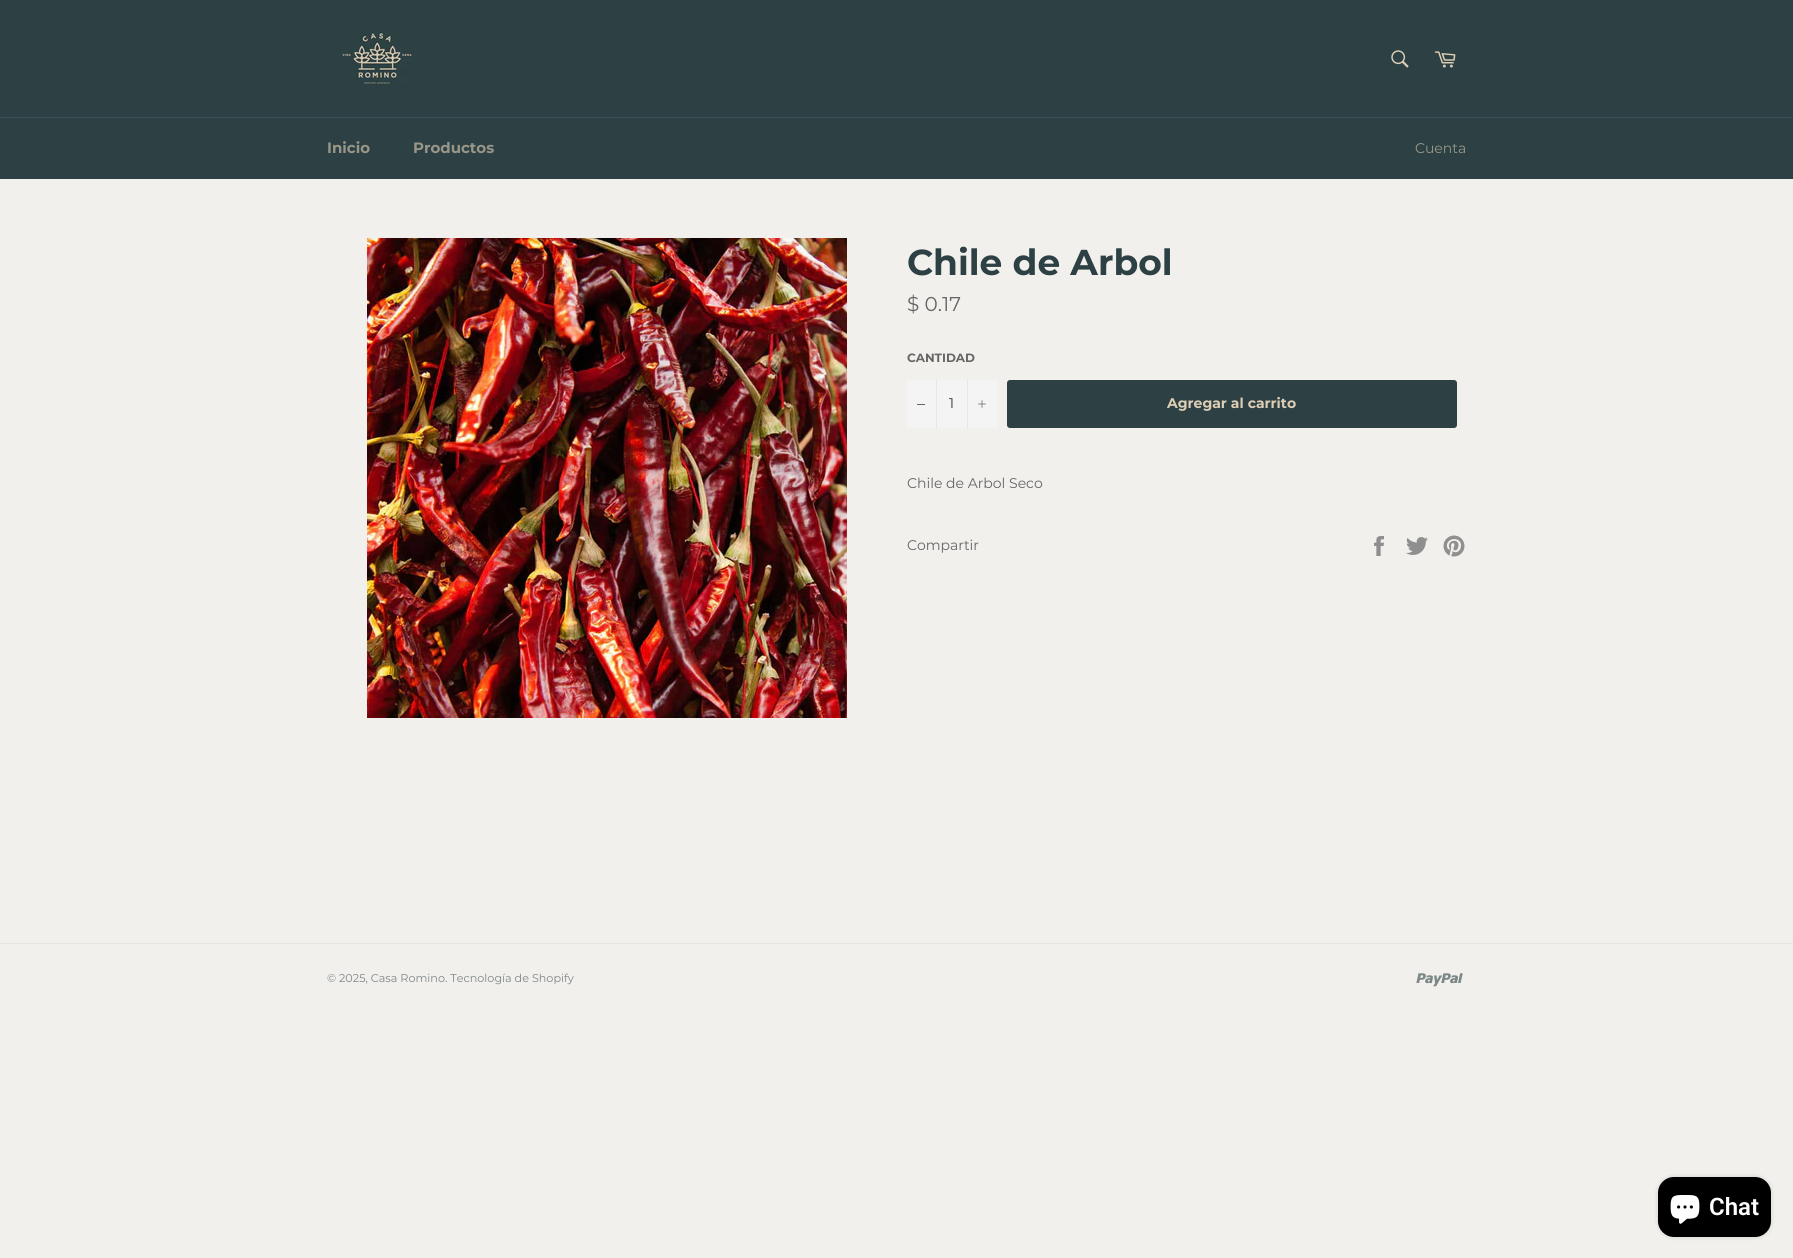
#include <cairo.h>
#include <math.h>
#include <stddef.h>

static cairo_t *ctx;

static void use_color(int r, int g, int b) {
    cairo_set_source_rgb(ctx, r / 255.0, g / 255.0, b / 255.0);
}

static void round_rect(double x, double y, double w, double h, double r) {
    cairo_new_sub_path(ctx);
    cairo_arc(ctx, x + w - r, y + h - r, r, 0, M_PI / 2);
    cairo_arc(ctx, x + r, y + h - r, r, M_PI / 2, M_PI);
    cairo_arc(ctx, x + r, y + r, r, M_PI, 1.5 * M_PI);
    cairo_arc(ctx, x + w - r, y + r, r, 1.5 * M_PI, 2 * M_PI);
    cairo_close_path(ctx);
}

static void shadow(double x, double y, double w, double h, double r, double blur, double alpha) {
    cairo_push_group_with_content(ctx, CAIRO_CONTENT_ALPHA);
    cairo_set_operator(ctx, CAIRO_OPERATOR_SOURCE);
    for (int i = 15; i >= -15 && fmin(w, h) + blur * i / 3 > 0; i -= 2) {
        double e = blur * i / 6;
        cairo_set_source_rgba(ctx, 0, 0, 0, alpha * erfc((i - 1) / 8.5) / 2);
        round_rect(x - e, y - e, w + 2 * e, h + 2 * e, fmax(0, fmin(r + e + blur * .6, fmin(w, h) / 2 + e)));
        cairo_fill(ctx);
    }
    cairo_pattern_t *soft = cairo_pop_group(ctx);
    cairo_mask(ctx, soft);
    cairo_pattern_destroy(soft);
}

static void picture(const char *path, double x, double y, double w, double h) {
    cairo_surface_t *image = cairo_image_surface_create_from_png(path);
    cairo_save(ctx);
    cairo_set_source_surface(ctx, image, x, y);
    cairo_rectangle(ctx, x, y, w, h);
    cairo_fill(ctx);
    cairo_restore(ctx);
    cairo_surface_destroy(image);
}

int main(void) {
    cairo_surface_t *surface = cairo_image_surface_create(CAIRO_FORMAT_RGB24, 1793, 1258);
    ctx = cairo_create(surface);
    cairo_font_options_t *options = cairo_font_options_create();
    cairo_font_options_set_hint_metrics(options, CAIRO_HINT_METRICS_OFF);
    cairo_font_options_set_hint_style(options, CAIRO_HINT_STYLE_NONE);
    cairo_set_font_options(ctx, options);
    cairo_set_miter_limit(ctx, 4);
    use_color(242, 240, 237);
    cairo_paint(ctx);
    use_color(45, 65, 68);
    cairo_rectangle(ctx, 0, 0, 1793, 117);
    cairo_fill(ctx);
    picture("img1.png", 340, 32, 74, 53);
    picture("img2.png", 1391, 50, 18, 18);
    picture("img3.png", 1434, 51, 22, 17);
    cairo_rectangle(ctx, 0, 118, 1793, 61);
    cairo_fill(ctx);
    use_color(55, 80, 83);
    cairo_rectangle(ctx, 0, 117, 1793, 1);
    cairo_fill(ctx);
    cairo_select_font_face(ctx, "Montserrat", CAIRO_FONT_SLANT_NORMAL, CAIRO_FONT_WEIGHT_BOLD);
    cairo_set_font_size(ctx, 15);
    use_color(151, 150, 136);
    cairo_move_to(ctx, 327, 153);
    cairo_show_text(ctx, "Inicio");
    cairo_move_to(ctx, 413, 153);
    cairo_show_text(ctx, "Productos");
    cairo_select_font_face(ctx, "Montserrat", CAIRO_FONT_SLANT_NORMAL, CAIRO_FONT_WEIGHT_NORMAL);
    cairo_set_font_size(ctx, 14);
    cairo_move_to(ctx, 1415, 153);
    cairo_show_text(ctx, "Cuenta");
    picture("img4.png", 367, 238, 480, 480);
    cairo_select_font_face(ctx, "Montserrat", CAIRO_FONT_SLANT_NORMAL, CAIRO_FONT_WEIGHT_BOLD);
    cairo_set_font_size(ctx, 36);
    use_color(45, 65, 68);
    cairo_move_to(ctx, 907, 275);
    cairo_show_text(ctx, "Chile de Arbol");
    cairo_select_font_face(ctx, "Montserrat", CAIRO_FONT_SLANT_NORMAL, CAIRO_FONT_WEIGHT_NORMAL);
    cairo_set_font_size(ctx, 20);
    use_color(102, 102, 102);
    cairo_move_to(ctx, 907, 311);
    cairo_show_text(ctx, "$ 0.17");
    cairo_select_font_face(ctx, "Montserrat", CAIRO_FONT_SLANT_NORMAL, CAIRO_FONT_WEIGHT_BOLD);
    cairo_set_font_size(ctx, 12);
    cairo_move_to(ctx, 907, 362);
    cairo_show_text(ctx, "CANTIDAD");
    use_color(244, 244, 244);
    cairo_rectangle(ctx, 907, 380, 90, 48);
    cairo_fill(ctx);
    use_color(231, 231, 231);
    cairo_rectangle(ctx, 936, 380, 1, 48);
    cairo_fill(ctx);
    use_color(102, 102, 102);
    cairo_rectangle(ctx, 917, 404, 8, 1);
    cairo_fill(ctx);
    cairo_select_font_face(ctx, "Montserrat", CAIRO_FONT_SLANT_NORMAL, CAIRO_FONT_WEIGHT_NORMAL);
    cairo_set_font_size(ctx, 14);
    use_color(51, 51, 51);
    cairo_move_to(ctx, 949, 408);
    cairo_show_text(ctx, "1");
    use_color(231, 231, 231);
    cairo_rectangle(ctx, 967, 380, 1, 48);
    cairo_fill(ctx);
    picture("img5.png", 978, 400, 8, 8);
    use_color(45, 65, 68);
    round_rect(1007, 380, 450, 48, 3);
    cairo_fill(ctx);
    cairo_select_font_face(ctx, "Montserrat", CAIRO_FONT_SLANT_NORMAL, CAIRO_FONT_WEIGHT_BOLD);
    use_color(222, 206, 182);
    cairo_move_to(ctx, 1167, 408);
    cairo_show_text(ctx, "Agregar al carrito");
    cairo_select_font_face(ctx, "Montserrat", CAIRO_FONT_SLANT_NORMAL, CAIRO_FONT_WEIGHT_NORMAL);
    use_color(102, 102, 102);
    cairo_move_to(ctx, 907, 488);
    cairo_show_text(ctx, "Chile de Arbol Seco");
    cairo_move_to(ctx, 907, 550);
    cairo_show_text(ctx, "Compartir");
    picture("img6.png", 1374, 536, 10, 20);
    picture("img7.png", 1406, 537, 22, 18);
    picture("img8.png", 1443, 535, 22, 22);
    use_color(231, 228, 222);
    cairo_rectangle(ctx, 0, 943, 1793, 1);
    cairo_fill(ctx);
    cairo_set_font_size(ctx, 11.2);
    use_color(124, 135, 136);
    cairo_move_to(ctx, 327, 982);
    cairo_show_text(ctx, "© 2025, Casa Romino. Tecnología de Shopify");
    picture("img9.png", 1416, 973, 47, 14);
    use_color(0, 0, 0);
    shadow(1658, 1177, 113, 60, 16, 2.5, 0.15);
    use_color(0, 0, 0);
    round_rect(1658, 1177, 113, 60, 16);
    cairo_fill(ctx);
    picture("img10.png", 1670, 1195, 30, 29);
    cairo_select_font_face(ctx, "Roboto SemiBold", CAIRO_FONT_SLANT_NORMAL, CAIRO_FONT_WEIGHT_NORMAL);
    cairo_set_font_size(ctx, 24);
    use_color(255, 255, 255);
    cairo_move_to(ctx, 1709, 1215);
    cairo_show_text(ctx, "Chat");
    cairo_surface_write_to_png(surface, "result.png");
    cairo_font_options_destroy(options);
    cairo_destroy(ctx);
    cairo_surface_destroy(surface);
    return 0;
}
